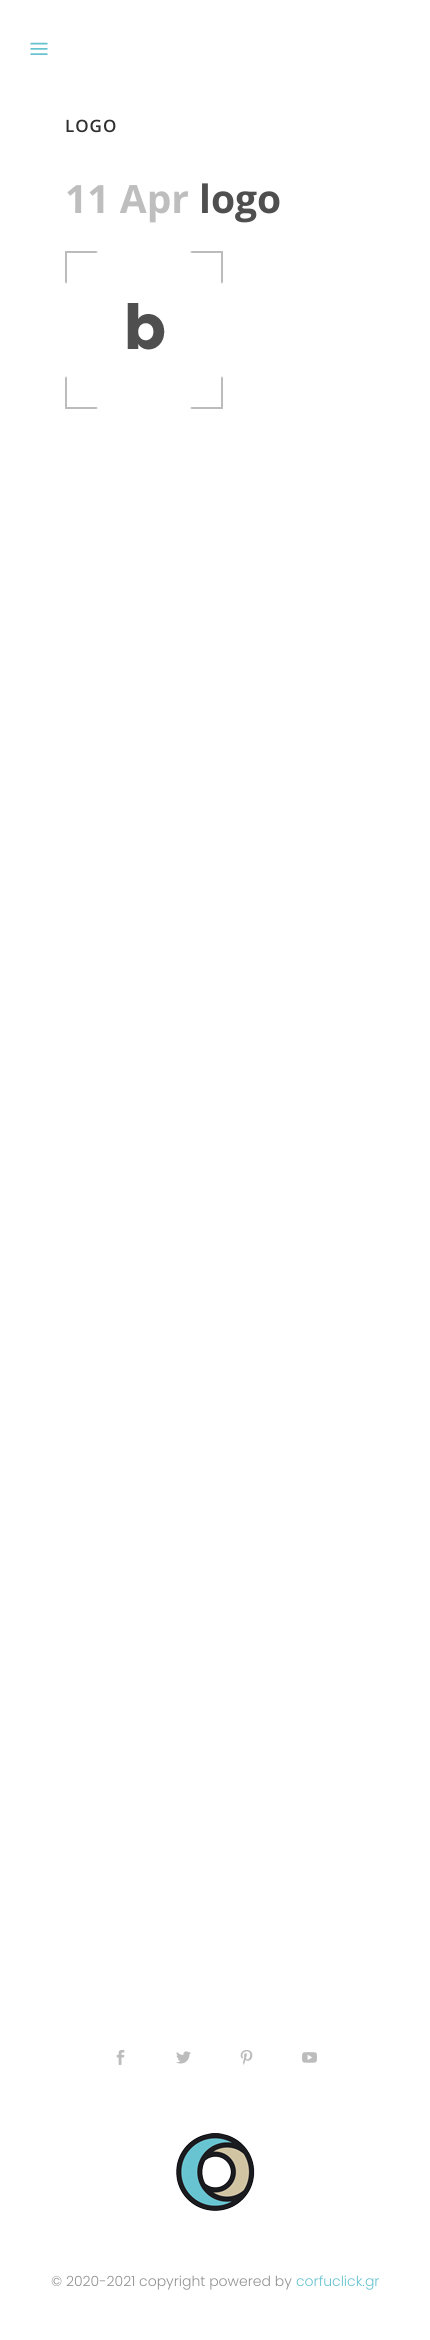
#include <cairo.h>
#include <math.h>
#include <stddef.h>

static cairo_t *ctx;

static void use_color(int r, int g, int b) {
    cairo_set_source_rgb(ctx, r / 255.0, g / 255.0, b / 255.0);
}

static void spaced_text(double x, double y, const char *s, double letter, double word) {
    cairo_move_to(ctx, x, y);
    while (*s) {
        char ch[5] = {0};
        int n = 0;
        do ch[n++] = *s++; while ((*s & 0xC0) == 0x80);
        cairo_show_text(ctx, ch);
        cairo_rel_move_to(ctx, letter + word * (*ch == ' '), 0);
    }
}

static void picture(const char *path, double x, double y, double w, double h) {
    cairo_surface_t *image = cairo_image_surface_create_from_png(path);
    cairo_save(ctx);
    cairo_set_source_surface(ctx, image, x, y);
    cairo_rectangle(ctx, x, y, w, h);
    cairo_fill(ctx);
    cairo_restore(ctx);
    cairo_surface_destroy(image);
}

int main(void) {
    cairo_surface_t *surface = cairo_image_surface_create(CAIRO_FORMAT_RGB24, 430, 2340);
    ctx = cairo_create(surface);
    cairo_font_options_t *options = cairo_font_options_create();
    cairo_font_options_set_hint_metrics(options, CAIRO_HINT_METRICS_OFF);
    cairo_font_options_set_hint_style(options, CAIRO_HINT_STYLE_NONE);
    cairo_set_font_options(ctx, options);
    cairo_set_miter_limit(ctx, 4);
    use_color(255, 255, 255);
    cairo_paint(ctx);
    picture("img1.png", 30, 42, 18, 13);
    cairo_select_font_face(ctx, "Open Sans SemiBold", CAIRO_FONT_SLANT_NORMAL, CAIRO_FONT_WEIGHT_NORMAL);
    cairo_set_font_size(ctx, 17);
    use_color(48, 48, 48);
    spaced_text(65, 132, "LOGO", 1, 0);
    cairo_select_font_face(ctx, "Open Sans", CAIRO_FONT_SLANT_NORMAL, CAIRO_FONT_WEIGHT_BOLD);
    cairo_set_font_size(ctx, 39);
    use_color(190, 190, 190);
    cairo_move_to(ctx, 65, 213);
    cairo_show_text(ctx, "11 Apr");
    use_color(79, 79, 79);
    cairo_move_to(ctx, 199, 213);
    cairo_show_text(ctx, "logo");
    picture("img2.png", 65, 251, 158, 158);
    picture("img3.png", 116, 2049, 9, 16);
    picture("img4.png", 176, 2051, 15, 13);
    picture("img5.png", 240, 2050, 13, 15);
    picture("img6.png", 302, 2052, 15, 11);
    picture("img7.png", 176, 2133, 79, 78);
    cairo_select_font_face(ctx, "Poppins Light", CAIRO_FONT_SLANT_NORMAL, CAIRO_FONT_WEIGHT_NORMAL);
    cairo_set_font_size(ctx, 14);
    use_color(146, 146, 146);
    cairo_move_to(ctx, 51, 2286);
    cairo_show_text(ctx, "© 2020-2021 copyright powered by");
    use_color(102, 195, 207);
    cairo_move_to(ctx, 296, 2286);
    cairo_show_text(ctx, "corfuclick.gr");
    cairo_surface_write_to_png(surface, "result.png");
    cairo_font_options_destroy(options);
    cairo_destroy(ctx);
    cairo_surface_destroy(surface);
    return 0;
}
